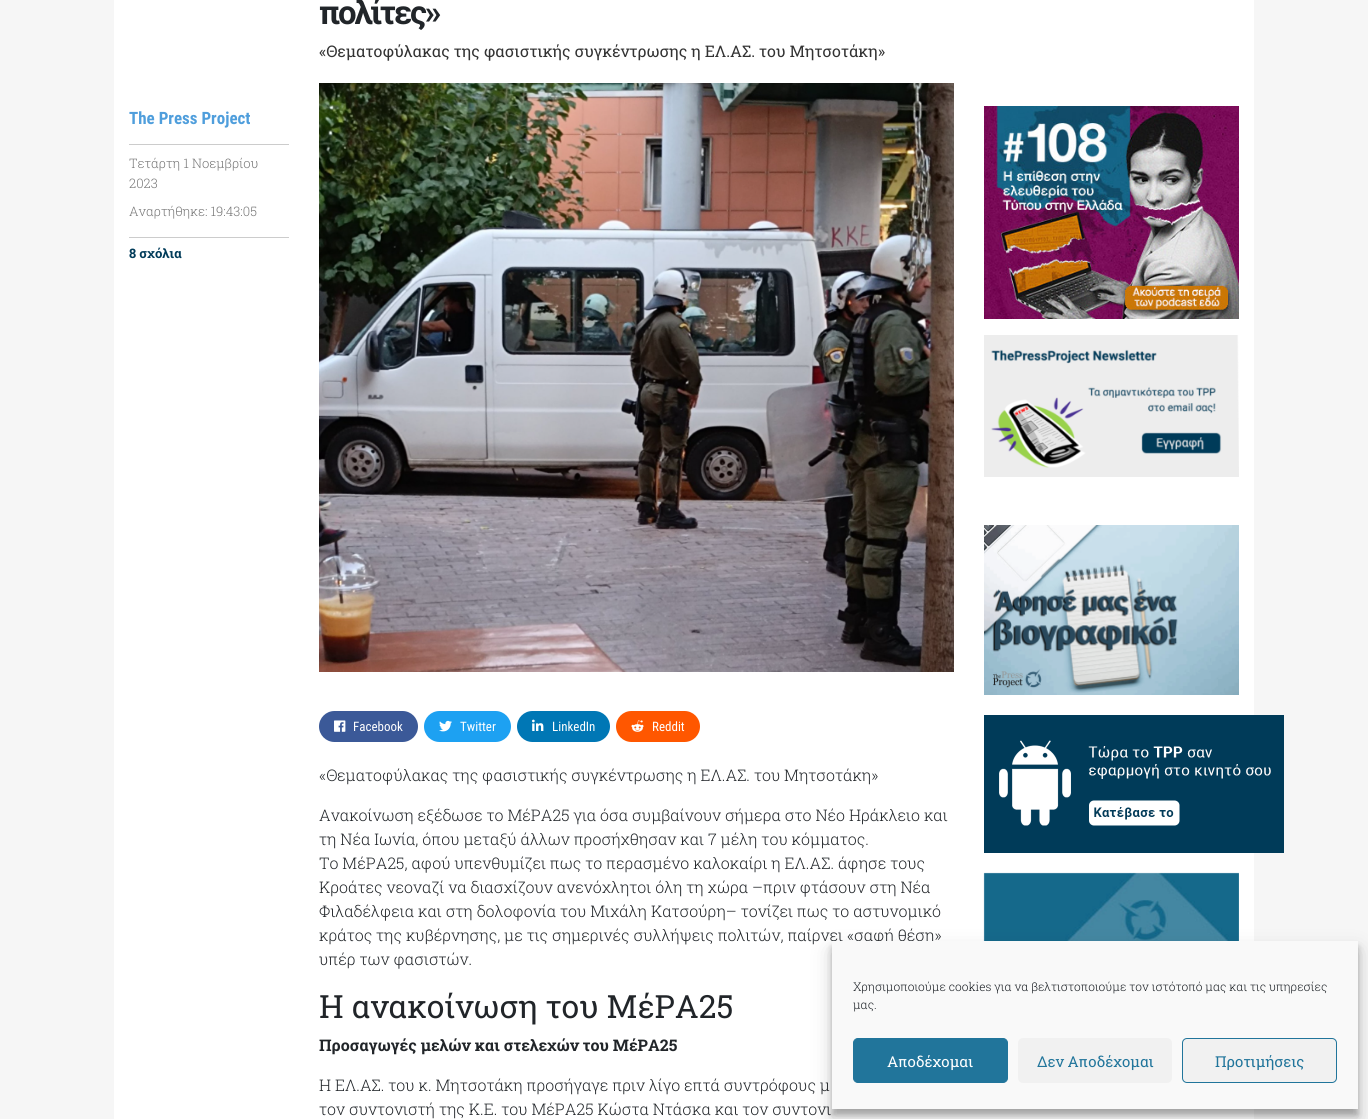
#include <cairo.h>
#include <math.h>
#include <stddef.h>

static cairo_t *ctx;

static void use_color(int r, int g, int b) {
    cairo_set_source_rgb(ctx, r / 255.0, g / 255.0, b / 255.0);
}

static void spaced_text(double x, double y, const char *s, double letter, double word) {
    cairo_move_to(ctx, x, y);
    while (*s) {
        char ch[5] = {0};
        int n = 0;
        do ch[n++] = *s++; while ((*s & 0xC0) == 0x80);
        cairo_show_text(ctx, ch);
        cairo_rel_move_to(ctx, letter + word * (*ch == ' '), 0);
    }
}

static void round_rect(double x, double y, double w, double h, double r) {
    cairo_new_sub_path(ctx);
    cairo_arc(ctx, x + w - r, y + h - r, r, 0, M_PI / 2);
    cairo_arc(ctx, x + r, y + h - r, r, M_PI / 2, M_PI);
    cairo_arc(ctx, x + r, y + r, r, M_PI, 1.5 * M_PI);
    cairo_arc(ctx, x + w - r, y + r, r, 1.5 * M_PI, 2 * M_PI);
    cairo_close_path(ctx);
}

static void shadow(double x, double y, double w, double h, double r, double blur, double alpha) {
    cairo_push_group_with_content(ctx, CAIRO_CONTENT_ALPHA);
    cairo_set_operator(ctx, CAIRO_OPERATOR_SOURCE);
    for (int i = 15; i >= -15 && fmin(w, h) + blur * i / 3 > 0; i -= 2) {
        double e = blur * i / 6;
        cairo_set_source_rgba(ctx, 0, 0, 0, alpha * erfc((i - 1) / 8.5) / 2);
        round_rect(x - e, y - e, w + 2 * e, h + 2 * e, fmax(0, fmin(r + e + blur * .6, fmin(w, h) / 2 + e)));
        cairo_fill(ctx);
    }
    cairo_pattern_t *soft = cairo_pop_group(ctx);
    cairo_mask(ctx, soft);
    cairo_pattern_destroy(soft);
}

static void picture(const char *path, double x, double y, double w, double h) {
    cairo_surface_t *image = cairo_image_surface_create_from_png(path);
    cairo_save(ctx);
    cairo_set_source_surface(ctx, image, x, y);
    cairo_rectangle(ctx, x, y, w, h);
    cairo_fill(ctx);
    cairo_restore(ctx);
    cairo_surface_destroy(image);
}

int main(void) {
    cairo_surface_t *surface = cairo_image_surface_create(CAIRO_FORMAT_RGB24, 1368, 1119);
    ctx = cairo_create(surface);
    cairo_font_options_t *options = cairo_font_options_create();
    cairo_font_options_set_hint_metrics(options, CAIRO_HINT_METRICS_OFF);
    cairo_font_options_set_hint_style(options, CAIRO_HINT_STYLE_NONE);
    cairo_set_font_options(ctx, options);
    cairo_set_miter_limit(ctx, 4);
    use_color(246, 246, 246);
    cairo_paint(ctx);
    use_color(255, 255, 255);
    cairo_rectangle(ctx, 114, 0, 1140, 1119);
    cairo_fill(ctx);
    cairo_select_font_face(ctx, "Roboto Condensed", CAIRO_FONT_SLANT_NORMAL, CAIRO_FONT_WEIGHT_BOLD);
    cairo_set_font_size(ctx, 17);
    use_color(79, 158, 220);
    cairo_move_to(ctx, 129, 124);
    cairo_show_text(ctx, "The Press Project");
    use_color(204, 204, 204);
    cairo_rectangle(ctx, 129, 144, 160, 1);
    cairo_fill(ctx);
    cairo_rectangle(ctx, 129, 237, 160, 1);
    cairo_fill(ctx);
    cairo_select_font_face(ctx, "Roboto Slab Light", CAIRO_FONT_SLANT_NORMAL, CAIRO_FONT_WEIGHT_NORMAL);
    cairo_set_font_size(ctx, 13.1);
    use_color(119, 119, 119);
    cairo_move_to(ctx, 129, 168);
    cairo_show_text(ctx, "Τετάρτη 1 Νοεμβρίου");
    cairo_move_to(ctx, 129, 188);
    cairo_show_text(ctx, "2023");
    cairo_move_to(ctx, 129, 216);
    cairo_show_text(ctx, "Αναρτήθηκε: 19:43:05");
    cairo_select_font_face(ctx, "Roboto Slab", CAIRO_FONT_SLANT_NORMAL, CAIRO_FONT_WEIGHT_BOLD);
    use_color(0, 59, 89);
    cairo_move_to(ctx, 129, 258);
    cairo_show_text(ctx, "8 σχόλια");
    cairo_set_font_size(ctx, 33);
    use_color(33, 37, 41);
    spaced_text(319, 24, "πολίτες»", -2, 0);
    cairo_select_font_face(ctx, "Roboto Slab", CAIRO_FONT_SLANT_NORMAL, CAIRO_FONT_WEIGHT_NORMAL);
    cairo_set_font_size(ctx, 16);
    use_color(51, 51, 51);
    cairo_move_to(ctx, 319, 57);
    cairo_show_text(ctx, "«Θεματοφύλακας της φασιστικής συγκέντρωσης η ΕΛ.ΑΣ. του Μητσοτάκη»");
    picture("img1.png", 319, 83, 635, 589);
    use_color(59, 89, 152);
    round_rect(319, 711, 99, 31, 15.5);
    cairo_fill(ctx);
    picture("img2.png", 334, 720, 12, 12);
    cairo_select_font_face(ctx, "Roboto Condensed", CAIRO_FONT_SLANT_NORMAL, CAIRO_FONT_WEIGHT_NORMAL);
    cairo_set_font_size(ctx, 13);
    use_color(255, 255, 255);
    cairo_move_to(ctx, 353, 731);
    cairo_show_text(ctx, "Facebook");
    use_color(29, 161, 242);
    round_rect(424, 711, 87, 31, 15.5);
    cairo_fill(ctx);
    picture("img3.png", 439, 720, 13, 12);
    use_color(255, 255, 255);
    cairo_move_to(ctx, 460, 731);
    cairo_show_text(ctx, "Twitter");
    use_color(0, 119, 181);
    round_rect(517, 711, 93, 31, 15.5);
    cairo_fill(ctx);
    picture("img4.png", 532, 719, 12, 12);
    use_color(255, 255, 255);
    cairo_move_to(ctx, 552, 731);
    cairo_show_text(ctx, "LinkedIn");
    use_color(255, 87, 0);
    round_rect(616, 711, 84, 31, 15.5);
    cairo_fill(ctx);
    picture("img5.png", 631, 720, 13, 12);
    use_color(255, 255, 255);
    cairo_move_to(ctx, 652, 731);
    cairo_show_text(ctx, "Reddit");
    cairo_select_font_face(ctx, "Roboto Slab Light", CAIRO_FONT_SLANT_NORMAL, CAIRO_FONT_WEIGHT_NORMAL);
    cairo_set_font_size(ctx, 16);
    use_color(33, 37, 41);
    cairo_move_to(ctx, 319, 781);
    cairo_show_text(ctx, "«Θεματοφύλακας της φασιστικής συγκέντρωσης η ΕΛ.ΑΣ. του Μητσοτάκη»");
    cairo_move_to(ctx, 319, 821);
    cairo_show_text(ctx, "Ανακοίνωση εξέδωσε το ΜέΡΑ25 για όσα συμβαίνουν σήμερα στο Νέο Ηράκλειο και");
    cairo_move_to(ctx, 319, 845);
    cairo_show_text(ctx, "τη Νέα Ιωνία, όπου μεταξύ άλλων προσήχθησαν και 7 μέλη του κόμματος.");
    cairo_move_to(ctx, 319, 869);
    cairo_show_text(ctx, "Το ΜέΡΑ25, αφού υπενθυμίζει πως το περασμένο καλοκαίρι η ΕΛ.ΑΣ. άφησε τους");
    cairo_move_to(ctx, 319, 893);
    cairo_show_text(ctx, "Κροάτες νεοναζί να διασχίζουν ανενόχλητοι όλη τη χώρα –πριν φτάσουν στη Νέα");
    cairo_move_to(ctx, 319, 917);
    cairo_show_text(ctx, "Φιλαδέλφεια και στη δολοφονία του Μιχάλη Κατσούρη– τονίζει πως το αστυνομικό");
    cairo_move_to(ctx, 319, 941);
    cairo_show_text(ctx, "κράτος της κυβέρνησης, με τις σημερινές συλλήψεις πολιτών, παίρνει «σαφή θέση»");
    cairo_move_to(ctx, 319, 965);
    cairo_show_text(ctx, "υπέρ των φασιστών.");
    cairo_select_font_face(ctx, "Roboto Slab", CAIRO_FONT_SLANT_NORMAL, CAIRO_FONT_WEIGHT_NORMAL);
    cairo_set_font_size(ctx, 32);
    cairo_move_to(ctx, 319, 1018);
    cairo_show_text(ctx, "Η ανακοίνωση του ΜέΡΑ25");
    cairo_select_font_face(ctx, "Roboto Slab", CAIRO_FONT_SLANT_NORMAL, CAIRO_FONT_WEIGHT_BOLD);
    cairo_set_font_size(ctx, 16);
    cairo_move_to(ctx, 319, 1051);
    cairo_show_text(ctx, "Προσαγωγές μελών και στελεχών του ΜέΡΑ25");
    cairo_select_font_face(ctx, "Roboto Slab Light", CAIRO_FONT_SLANT_NORMAL, CAIRO_FONT_WEIGHT_NORMAL);
    cairo_move_to(ctx, 319, 1091);
    cairo_show_text(ctx, "Η ΕΛ.ΑΣ. του κ. Μητσοτάκη προσήγαγε πριν λίγο επτά συντρόφους μ");
    cairo_move_to(ctx, 319, 1115);
    cairo_show_text(ctx, "τον συντονιστή της Κ.Ε. του ΜέΡΑ25 Κώστα Ντάσκα και τον συντονι");
    picture("img6.png", 984, 106, 255, 213);
    picture("img7.png", 984, 335, 255, 142);
    picture("img8.png", 984, 525, 255, 170);
    picture("img9.png", 984, 715, 300, 138);
    picture("img10.png", 983, 872, 256, 69);
    use_color(0, 0, 0);
    shadow(832, 947, 526, 168, 0, 3, 0.23);
    shadow(832, 951, 526, 168, 0, 10, 0.19);
    use_color(249, 249, 249);
    cairo_rectangle(ctx, 832, 941, 526, 168);
    cairo_fill(ctx);
    cairo_set_font_size(ctx, 12);
    use_color(25, 30, 35);
    cairo_move_to(ctx, 853, 991);
    cairo_show_text(ctx, "Χρησιμοποιούμε cookies για να βελτιστοποιούμε τον ιστότοπό μας και τις υπηρεσίες");
    cairo_move_to(ctx, 853, 1009);
    cairo_show_text(ctx, "μας.");
    use_color(33, 117, 155);
    round_rect(853.5, 1038.5, 154, 44, 4.5);
    cairo_fill_preserve(ctx);
    cairo_set_line_width(ctx, 1);
    cairo_stroke(ctx);
    cairo_select_font_face(ctx, "Roboto Slab", CAIRO_FONT_SLANT_NORMAL, CAIRO_FONT_WEIGHT_NORMAL);
    cairo_set_font_size(ctx, 15);
    use_color(255, 255, 255);
    cairo_move_to(ctx, 887, 1067);
    cairo_show_text(ctx, "Αποδέχομαι");
    use_color(241, 241, 241);
    round_rect(1018, 1038, 154, 45, 5);
    cairo_fill(ctx);
    use_color(33, 117, 155);
    cairo_move_to(ctx, 1037, 1067);
    cairo_show_text(ctx, "Δεν Αποδέχομαι");
    use_color(241, 241, 241);
    round_rect(1182.5, 1038.5, 154, 44, 4.5);
    cairo_fill_preserve(ctx);
    use_color(33, 117, 155);
    cairo_stroke(ctx);
    cairo_move_to(ctx, 1215, 1067);
    cairo_show_text(ctx, "Προτιμήσεις");
    cairo_surface_write_to_png(surface, "result.png");
    cairo_font_options_destroy(options);
    cairo_destroy(ctx);
    cairo_surface_destroy(surface);
    return 0;
}
